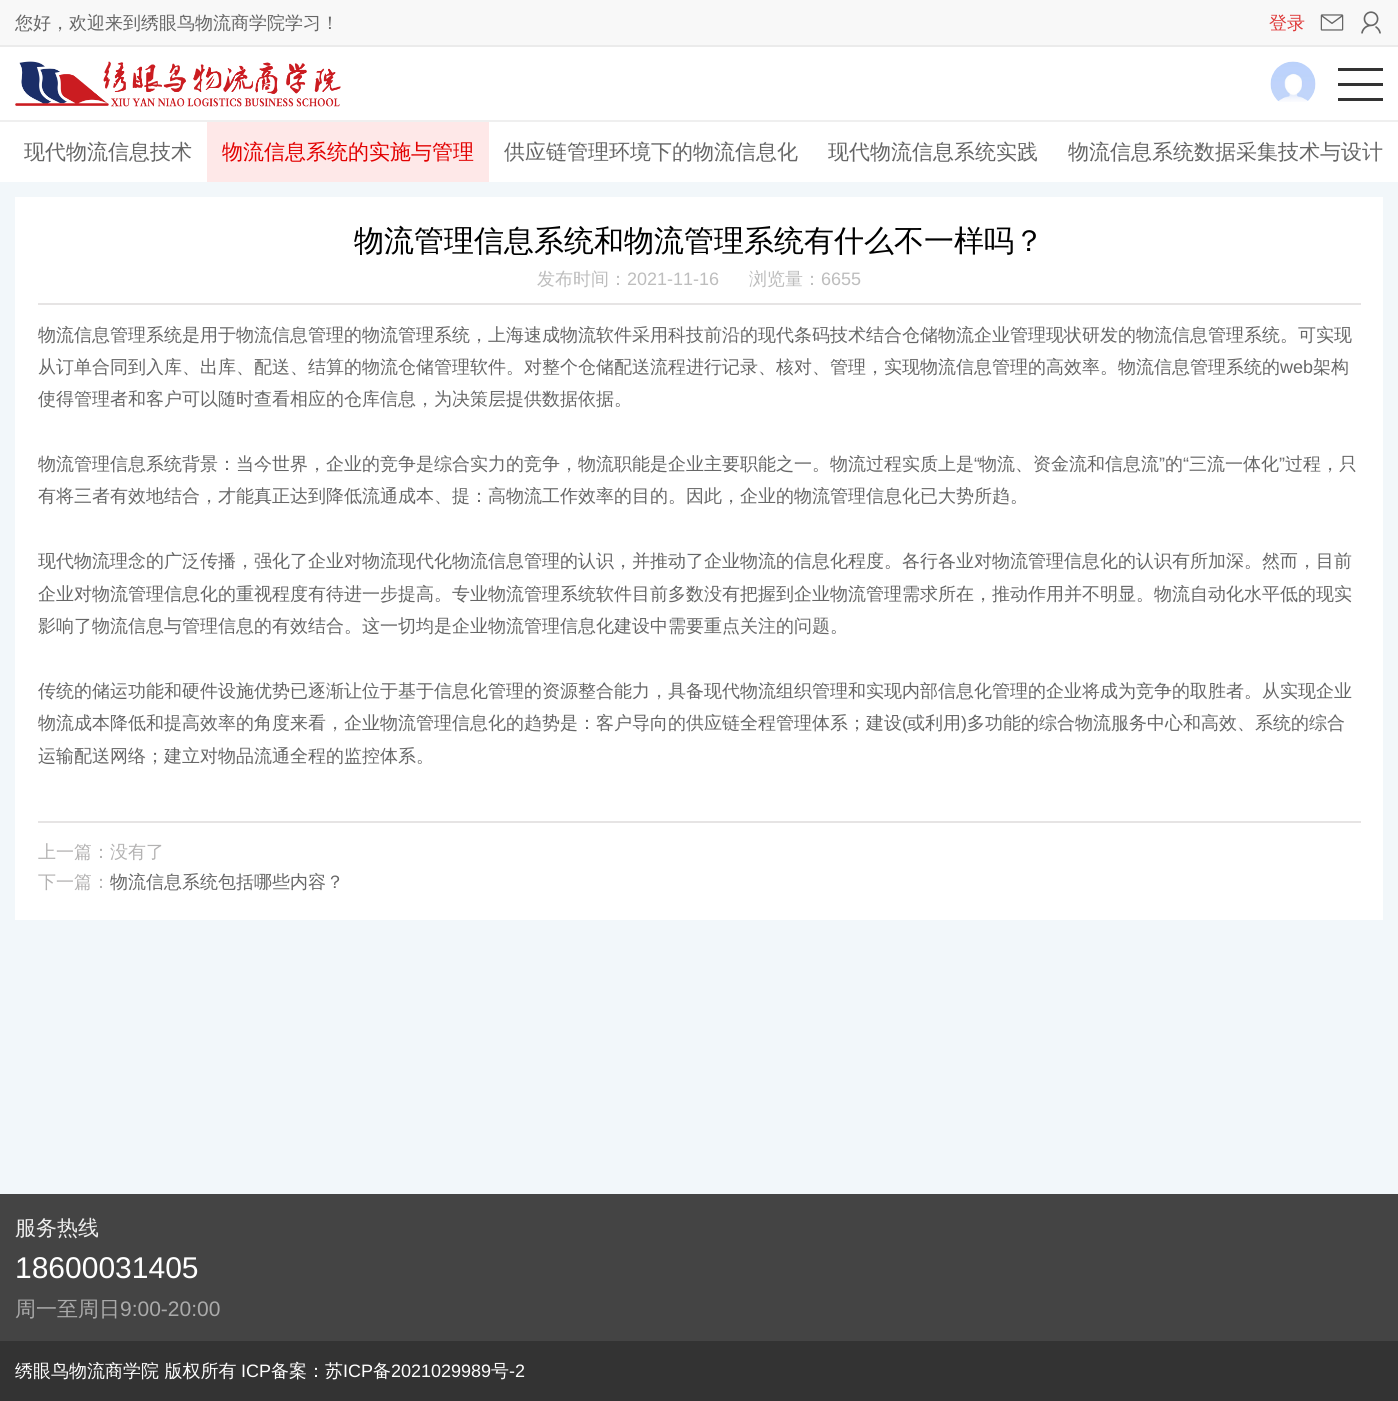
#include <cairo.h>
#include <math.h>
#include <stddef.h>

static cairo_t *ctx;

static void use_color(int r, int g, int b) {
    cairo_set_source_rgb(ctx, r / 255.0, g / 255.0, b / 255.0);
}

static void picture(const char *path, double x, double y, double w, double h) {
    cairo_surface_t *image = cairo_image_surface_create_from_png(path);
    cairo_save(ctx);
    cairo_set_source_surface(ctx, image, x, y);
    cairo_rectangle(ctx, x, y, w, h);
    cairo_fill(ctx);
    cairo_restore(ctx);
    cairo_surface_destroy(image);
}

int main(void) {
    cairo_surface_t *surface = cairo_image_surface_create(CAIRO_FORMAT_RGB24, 1398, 1401);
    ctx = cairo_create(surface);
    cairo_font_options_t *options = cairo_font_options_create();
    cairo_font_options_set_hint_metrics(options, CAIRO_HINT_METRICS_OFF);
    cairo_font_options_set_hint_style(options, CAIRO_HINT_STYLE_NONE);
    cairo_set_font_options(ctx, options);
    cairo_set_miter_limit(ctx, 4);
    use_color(255, 255, 255);
    cairo_paint(ctx);
    use_color(248, 248, 248);
    cairo_rectangle(ctx, 0, 0, 1398, 45);
    cairo_fill(ctx);
    use_color(235, 235, 235);
    cairo_rectangle(ctx, 0, 45, 1398, 2);
    cairo_fill(ctx);
    cairo_select_font_face(ctx, "WenQuanYi Zen Hei Medium", CAIRO_FONT_SLANT_NORMAL, CAIRO_FONT_WEIGHT_NORMAL);
    cairo_set_font_size(ctx, 18);
    use_color(102, 102, 102);
    cairo_move_to(ctx, 15, 29);
    cairo_show_text(ctx, "您好，欢迎来到绣眼鸟物流商学院学习！");
    use_color(222, 57, 57);
    cairo_move_to(ctx, 1269, 29);
    cairo_show_text(ctx, "登录");
    picture("img1.png", 1320, 14, 24, 17);
    picture("img2.png", 1361, 11, 20, 23);
    picture("img3.png", 15, 61, 326, 46);
    picture("img4.png", 1270, 61, 46, 41);
    use_color(51, 51, 51);
    cairo_rectangle(ctx, 1338, 68, 45, 3);
    cairo_fill(ctx);
    cairo_rectangle(ctx, 1338, 83, 45, 3);
    cairo_fill(ctx);
    cairo_rectangle(ctx, 1338, 98, 45, 3);
    cairo_fill(ctx);
    use_color(239, 239, 239);
    cairo_rectangle(ctx, 0, 120, 1398, 2);
    cairo_fill(ctx);
    use_color(242, 247, 250);
    cairo_rectangle(ctx, 0, 182, 1398, 1012);
    cairo_fill(ctx);
    cairo_set_font_size(ctx, 21);
    use_color(102, 102, 102);
    cairo_move_to(ctx, 24, 159);
    cairo_show_text(ctx, "现代物流信息技术");
    use_color(254, 232, 232);
    cairo_rectangle(ctx, 207, 122, 282, 60);
    cairo_fill(ctx);
    use_color(226, 1, 1);
    cairo_move_to(ctx, 222, 159);
    cairo_show_text(ctx, "物流信息系统的实施与管理");
    use_color(102, 102, 102);
    cairo_move_to(ctx, 504, 159);
    cairo_show_text(ctx, "供应链管理环境下的物流信息化");
    cairo_move_to(ctx, 828, 159);
    cairo_show_text(ctx, "现代物流信息系统实践");
    cairo_move_to(ctx, 1068, 159);
    cairo_show_text(ctx, "物流信息系统数据采集技术与设计");
    use_color(255, 255, 255);
    cairo_rectangle(ctx, 15, 197, 1368, 723);
    cairo_fill(ctx);
    cairo_set_font_size(ctx, 30);
    use_color(0, 0, 0);
    cairo_move_to(ctx, 354, 251);
    cairo_show_text(ctx, "物流管理信息系统和物流管理系统有什么不一样吗？");
    cairo_set_font_size(ctx, 18);
    use_color(189, 189, 189);
    cairo_move_to(ctx, 537, 285);
    cairo_show_text(ctx, "发布时间：");
    cairo_select_font_face(ctx, "Liberation Sans", CAIRO_FONT_SLANT_NORMAL, CAIRO_FONT_WEIGHT_NORMAL);
    cairo_move_to(ctx, 627, 285);
    cairo_show_text(ctx, "2021-11-16");
    cairo_select_font_face(ctx, "WenQuanYi Zen Hei Medium", CAIRO_FONT_SLANT_NORMAL, CAIRO_FONT_WEIGHT_NORMAL);
    cairo_move_to(ctx, 749, 285);
    cairo_show_text(ctx, "浏览量：");
    cairo_select_font_face(ctx, "Liberation Sans", CAIRO_FONT_SLANT_NORMAL, CAIRO_FONT_WEIGHT_NORMAL);
    cairo_move_to(ctx, 821, 285);
    cairo_show_text(ctx, "6655");
    use_color(230, 228, 228);
    cairo_rectangle(ctx, 38, 303, 1323, 2);
    cairo_fill(ctx);
    cairo_rectangle(ctx, 38, 821, 1323, 2);
    cairo_fill(ctx);
    cairo_save(ctx);
    cairo_rectangle(ctx, 38, 305, 1323, 516);
    cairo_clip(ctx);
    cairo_select_font_face(ctx, "WenQuanYi Zen Hei Medium", CAIRO_FONT_SLANT_NORMAL, CAIRO_FONT_WEIGHT_NORMAL);
    use_color(102, 102, 102);
    cairo_move_to(ctx, 38, 341);
    cairo_show_text(ctx, "物流信息管理系统是用于物流信息管理的物流管理系统，上海速成物流软件采用科技前沿的现代条码技术结合仓储物流企业管理现状研发的物流信息管理系统。可实现");
    cairo_restore(ctx);
    cairo_select_font_face(ctx, "WenQuanYi Zen Hei Medium", CAIRO_FONT_SLANT_NORMAL, CAIRO_FONT_WEIGHT_NORMAL);
    use_color(102, 102, 102);
    cairo_move_to(ctx, 38, 373);
    cairo_show_text(ctx, "从订单合同到入库、出库、配送、结算的物流仓储管理软件。对整个仓储配送流程进行记录、核对、管理，实现物流信息管理的高效率。物流信息管理系统的");
    cairo_select_font_face(ctx, "Liberation Sans", CAIRO_FONT_SLANT_NORMAL, CAIRO_FONT_WEIGHT_NORMAL);
    cairo_move_to(ctx, 1280, 373);
    cairo_show_text(ctx, "web");
    cairo_select_font_face(ctx, "WenQuanYi Zen Hei Medium", CAIRO_FONT_SLANT_NORMAL, CAIRO_FONT_WEIGHT_NORMAL);
    cairo_move_to(ctx, 1313, 373);
    cairo_show_text(ctx, "架构");
    cairo_move_to(ctx, 38, 405);
    cairo_show_text(ctx, "使得管理者和客户可以随时查看相应的仓库信息，为决策层提供数据依据。");
    cairo_save(ctx);
    cairo_rectangle(ctx, 38, 305, 1323, 516);
    cairo_clip(ctx);
    cairo_move_to(ctx, 38, 470);
    cairo_show_text(ctx, "物流管理信息系统背景：当今世界，企业的竞争是综合实力的竞争，物流职能是企业主要职能之一。物流过程实质上是");
    cairo_restore(ctx);
    cairo_select_font_face(ctx, "Liberation Sans", CAIRO_FONT_SLANT_NORMAL, CAIRO_FONT_WEIGHT_NORMAL);
    cairo_move_to(ctx, 974, 470);
    cairo_show_text(ctx, "“");
    cairo_select_font_face(ctx, "WenQuanYi Zen Hei Medium", CAIRO_FONT_SLANT_NORMAL, CAIRO_FONT_WEIGHT_NORMAL);
    cairo_move_to(ctx, 979, 470);
    cairo_show_text(ctx, "物流、资金流和信息流");
    cairo_select_font_face(ctx, "Liberation Sans", CAIRO_FONT_SLANT_NORMAL, CAIRO_FONT_WEIGHT_NORMAL);
    cairo_move_to(ctx, 1159, 470);
    cairo_show_text(ctx, "”");
    cairo_select_font_face(ctx, "WenQuanYi Zen Hei Medium", CAIRO_FONT_SLANT_NORMAL, CAIRO_FONT_WEIGHT_NORMAL);
    cairo_move_to(ctx, 1165, 470);
    cairo_show_text(ctx, "的");
    cairo_select_font_face(ctx, "Liberation Sans", CAIRO_FONT_SLANT_NORMAL, CAIRO_FONT_WEIGHT_NORMAL);
    cairo_move_to(ctx, 1183, 470);
    cairo_show_text(ctx, "“");
    cairo_select_font_face(ctx, "WenQuanYi Zen Hei Medium", CAIRO_FONT_SLANT_NORMAL, CAIRO_FONT_WEIGHT_NORMAL);
    cairo_move_to(ctx, 1189, 470);
    cairo_show_text(ctx, "三流一体化");
    cairo_select_font_face(ctx, "Liberation Sans", CAIRO_FONT_SLANT_NORMAL, CAIRO_FONT_WEIGHT_NORMAL);
    cairo_move_to(ctx, 1279, 470);
    cairo_show_text(ctx, "”");
    cairo_select_font_face(ctx, "WenQuanYi Zen Hei Medium", CAIRO_FONT_SLANT_NORMAL, CAIRO_FONT_WEIGHT_NORMAL);
    cairo_move_to(ctx, 1285, 470);
    cairo_show_text(ctx, "过程，只");
    cairo_move_to(ctx, 38, 502);
    cairo_show_text(ctx, "有将三者有效地结合，才能真正达到降低流通成本、提：高物流工作效率的目的。因此，企业的物流管理信息化已大势所趋。");
    cairo_save(ctx);
    cairo_rectangle(ctx, 38, 305, 1323, 516);
    cairo_clip(ctx);
    cairo_move_to(ctx, 38, 567);
    cairo_show_text(ctx, "现代物流理念的广泛传播，强化了企业对物流现代化物流信息管理的认识，并推动了企业物流的信息化程度。各行各业对物流管理信息化的认识有所加深。然而，目前");
    cairo_restore(ctx);
    cairo_move_to(ctx, 38, 600);
    cairo_show_text(ctx, "企业对物流管理信息化的重视程度有待进一步提高。专业物流管理系统软件目前多数没有把握到企业物流管理需求所在，推动作用并不明显。物流自动化水平低的现实");
    cairo_move_to(ctx, 38, 632);
    cairo_show_text(ctx, "影响了物流信息与管理信息的有效结合。这一切均是企业物流管理信息化建设中需要重点关注的问题。");
    cairo_move_to(ctx, 38, 697);
    cairo_show_text(ctx, "传统的储运功能和硬件设施优势已逐渐让位于基于信息化管理的资源整合能力，具备现代物流组织管理和实现内部信息化管理的企业将成为竞争的取胜者。从实现企业");
    cairo_save(ctx);
    cairo_rectangle(ctx, 38, 305, 1323, 516);
    cairo_clip(ctx);
    cairo_move_to(ctx, 38, 729);
    cairo_show_text(ctx, "物流成本降低和提高效率的角度来看，企业物流管理信息化的趋势是：客户导向的供应链全程管理体系；建设");
    cairo_restore(ctx);
    cairo_select_font_face(ctx, "Liberation Sans", CAIRO_FONT_SLANT_NORMAL, CAIRO_FONT_WEIGHT_NORMAL);
    cairo_move_to(ctx, 902, 729);
    cairo_show_text(ctx, "(");
    cairo_select_font_face(ctx, "WenQuanYi Zen Hei Medium", CAIRO_FONT_SLANT_NORMAL, CAIRO_FONT_WEIGHT_NORMAL);
    cairo_move_to(ctx, 907, 729);
    cairo_show_text(ctx, "或利用");
    cairo_select_font_face(ctx, "Liberation Sans", CAIRO_FONT_SLANT_NORMAL, CAIRO_FONT_WEIGHT_NORMAL);
    cairo_move_to(ctx, 961, 729);
    cairo_show_text(ctx, ")");
    cairo_select_font_face(ctx, "WenQuanYi Zen Hei Medium", CAIRO_FONT_SLANT_NORMAL, CAIRO_FONT_WEIGHT_NORMAL);
    cairo_move_to(ctx, 967, 729);
    cairo_show_text(ctx, "多功能的综合物流服务中心和高效、系统的综合");
    cairo_move_to(ctx, 38, 762);
    cairo_show_text(ctx, "运输配送网络；建立对物品流通全程的监控体系。");
    use_color(179, 178, 178);
    cairo_move_to(ctx, 38, 858);
    cairo_show_text(ctx, "上一篇：没有了");
    cairo_move_to(ctx, 38, 888);
    cairo_show_text(ctx, "下一篇：");
    use_color(102, 102, 102);
    cairo_move_to(ctx, 110, 888);
    cairo_show_text(ctx, "物流信息系统包括哪些内容？");
    use_color(68, 68, 68);
    cairo_rectangle(ctx, 0, 1194, 1398, 147);
    cairo_fill(ctx);
    cairo_set_font_size(ctx, 21);
    use_color(238, 238, 238);
    cairo_move_to(ctx, 15, 1235);
    cairo_show_text(ctx, "服务热线");
    cairo_select_font_face(ctx, "Liberation Sans", CAIRO_FONT_SLANT_NORMAL, CAIRO_FONT_WEIGHT_NORMAL);
    cairo_set_font_size(ctx, 30);
    use_color(255, 255, 255);
    cairo_move_to(ctx, 15, 1278);
    cairo_show_text(ctx, "18600031405");
    cairo_select_font_face(ctx, "WenQuanYi Zen Hei Medium", CAIRO_FONT_SLANT_NORMAL, CAIRO_FONT_WEIGHT_NORMAL);
    cairo_set_font_size(ctx, 21);
    use_color(170, 170, 170);
    cairo_move_to(ctx, 15, 1316);
    cairo_show_text(ctx, "周一至周日");
    cairo_select_font_face(ctx, "Liberation Sans", CAIRO_FONT_SLANT_NORMAL, CAIRO_FONT_WEIGHT_NORMAL);
    cairo_move_to(ctx, 120, 1316);
    cairo_show_text(ctx, "9:00-20:00");
    use_color(51, 51, 51);
    cairo_rectangle(ctx, 0, 1341, 1398, 60);
    cairo_fill(ctx);
    cairo_select_font_face(ctx, "WenQuanYi Zen Hei Medium", CAIRO_FONT_SLANT_NORMAL, CAIRO_FONT_WEIGHT_NORMAL);
    cairo_set_font_size(ctx, 18);
    use_color(255, 255, 255);
    cairo_move_to(ctx, 15, 1377);
    cairo_show_text(ctx, "绣眼鸟物流商学院 版权所有");
    cairo_select_font_face(ctx, "Liberation Sans", CAIRO_FONT_SLANT_NORMAL, CAIRO_FONT_WEIGHT_NORMAL);
    cairo_move_to(ctx, 241, 1377);
    cairo_show_text(ctx, "ICP");
    cairo_select_font_face(ctx, "WenQuanYi Zen Hei Medium", CAIRO_FONT_SLANT_NORMAL, CAIRO_FONT_WEIGHT_NORMAL);
    cairo_move_to(ctx, 271, 1377);
    cairo_show_text(ctx, "备案：");
    cairo_move_to(ctx, 325, 1377);
    cairo_show_text(ctx, "苏");
    cairo_select_font_face(ctx, "Liberation Sans", CAIRO_FONT_SLANT_NORMAL, CAIRO_FONT_WEIGHT_NORMAL);
    cairo_move_to(ctx, 343, 1377);
    cairo_show_text(ctx, "ICP");
    cairo_select_font_face(ctx, "WenQuanYi Zen Hei Medium", CAIRO_FONT_SLANT_NORMAL, CAIRO_FONT_WEIGHT_NORMAL);
    cairo_move_to(ctx, 373, 1377);
    cairo_show_text(ctx, "备");
    cairo_select_font_face(ctx, "Liberation Sans", CAIRO_FONT_SLANT_NORMAL, CAIRO_FONT_WEIGHT_NORMAL);
    cairo_move_to(ctx, 391, 1377);
    cairo_show_text(ctx, "2021029989");
    cairo_select_font_face(ctx, "WenQuanYi Zen Hei Medium", CAIRO_FONT_SLANT_NORMAL, CAIRO_FONT_WEIGHT_NORMAL);
    cairo_move_to(ctx, 491, 1377);
    cairo_show_text(ctx, "号");
    cairo_select_font_face(ctx, "Liberation Sans", CAIRO_FONT_SLANT_NORMAL, CAIRO_FONT_WEIGHT_NORMAL);
    cairo_move_to(ctx, 509, 1377);
    cairo_show_text(ctx, "-2");
    cairo_surface_write_to_png(surface, "result.png");
    cairo_font_options_destroy(options);
    cairo_destroy(ctx);
    cairo_surface_destroy(surface);
    return 0;
}
